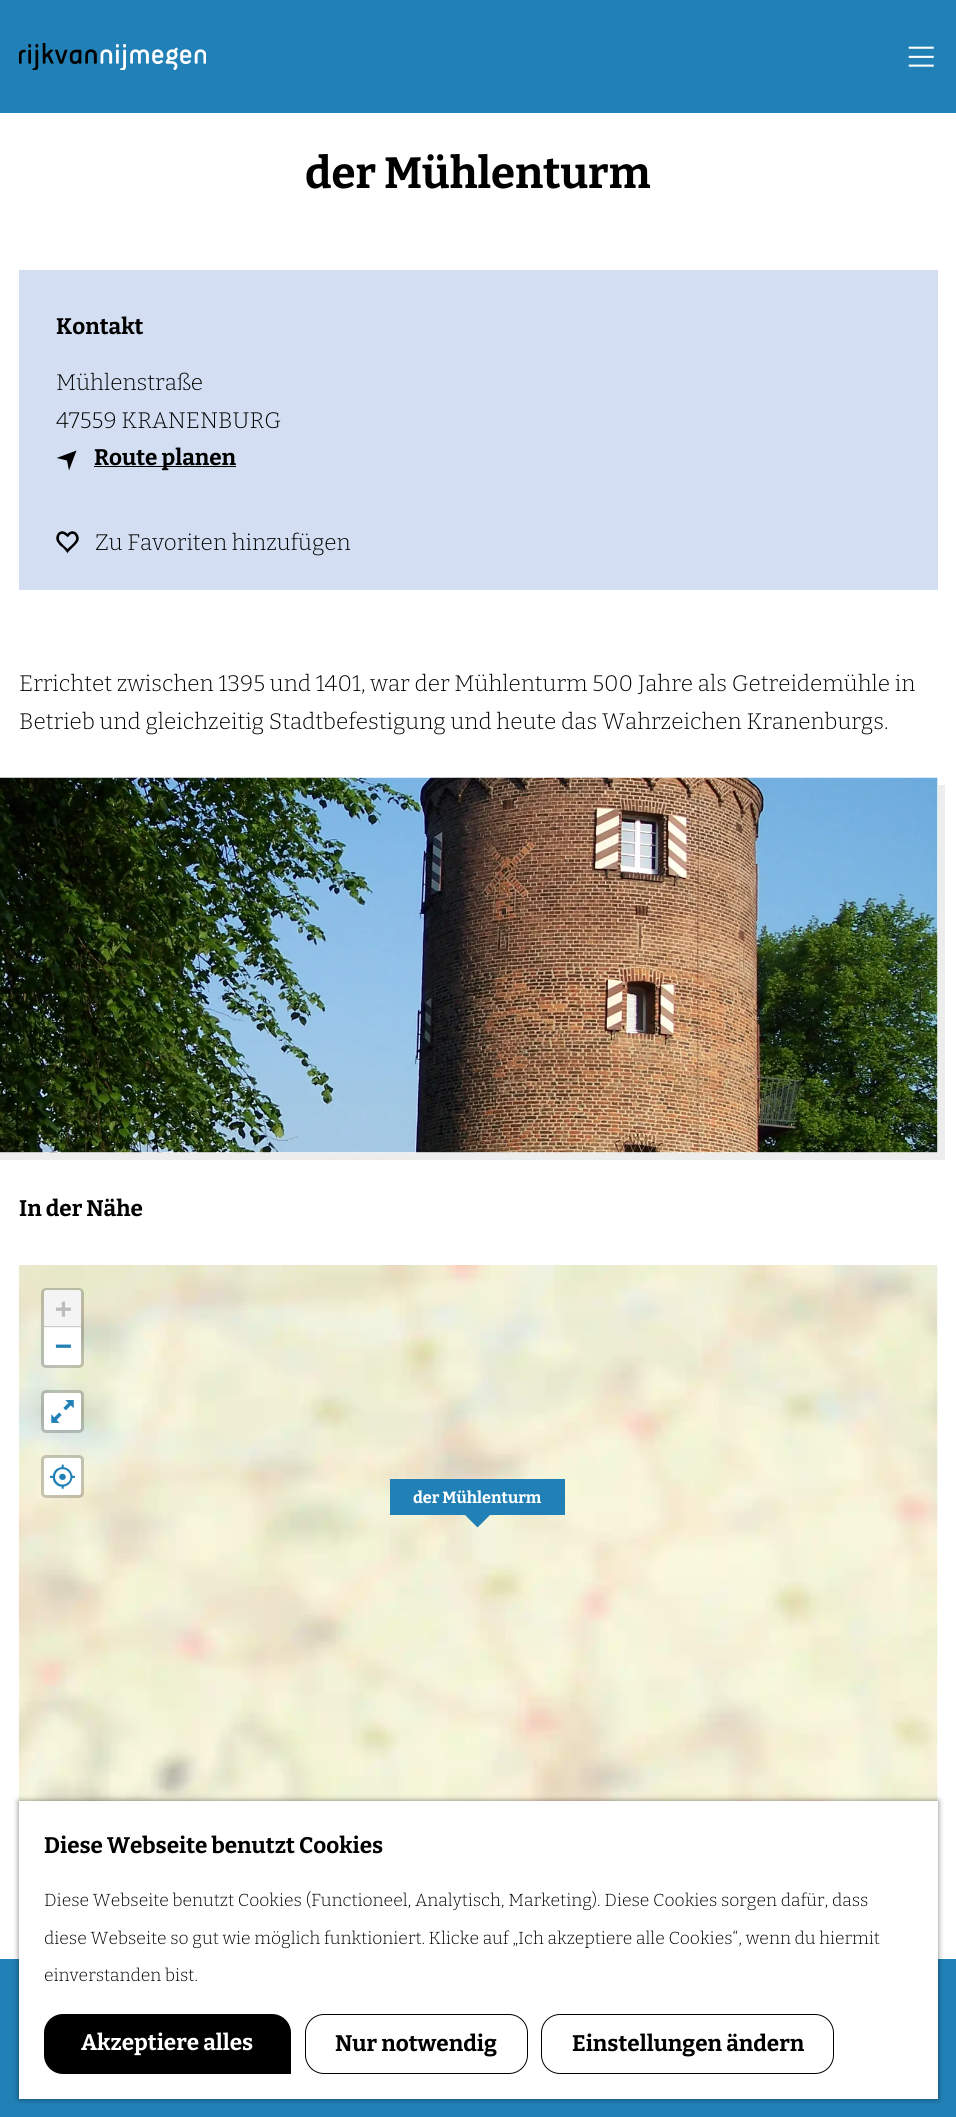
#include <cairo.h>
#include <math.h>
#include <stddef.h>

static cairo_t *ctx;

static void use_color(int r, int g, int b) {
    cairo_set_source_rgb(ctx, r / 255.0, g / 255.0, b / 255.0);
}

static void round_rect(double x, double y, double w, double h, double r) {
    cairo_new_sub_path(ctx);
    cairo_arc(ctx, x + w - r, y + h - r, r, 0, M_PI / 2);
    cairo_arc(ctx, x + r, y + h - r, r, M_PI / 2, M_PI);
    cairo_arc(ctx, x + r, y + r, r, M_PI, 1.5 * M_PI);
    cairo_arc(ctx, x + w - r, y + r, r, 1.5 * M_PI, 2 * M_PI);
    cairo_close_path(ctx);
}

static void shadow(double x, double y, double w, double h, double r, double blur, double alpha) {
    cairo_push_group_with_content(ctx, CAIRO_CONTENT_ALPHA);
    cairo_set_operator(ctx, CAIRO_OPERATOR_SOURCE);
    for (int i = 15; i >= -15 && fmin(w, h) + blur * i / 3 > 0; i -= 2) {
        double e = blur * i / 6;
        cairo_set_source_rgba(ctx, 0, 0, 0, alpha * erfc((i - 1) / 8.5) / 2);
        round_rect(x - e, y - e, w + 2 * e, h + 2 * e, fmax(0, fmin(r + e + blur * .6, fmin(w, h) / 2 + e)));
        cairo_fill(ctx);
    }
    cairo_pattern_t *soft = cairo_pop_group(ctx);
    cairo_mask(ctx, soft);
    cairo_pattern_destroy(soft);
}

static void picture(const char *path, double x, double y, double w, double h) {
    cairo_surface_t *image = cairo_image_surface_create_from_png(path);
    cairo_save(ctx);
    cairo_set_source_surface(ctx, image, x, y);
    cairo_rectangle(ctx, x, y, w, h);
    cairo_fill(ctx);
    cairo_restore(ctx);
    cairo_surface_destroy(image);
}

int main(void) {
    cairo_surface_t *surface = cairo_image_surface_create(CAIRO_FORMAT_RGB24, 956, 2117);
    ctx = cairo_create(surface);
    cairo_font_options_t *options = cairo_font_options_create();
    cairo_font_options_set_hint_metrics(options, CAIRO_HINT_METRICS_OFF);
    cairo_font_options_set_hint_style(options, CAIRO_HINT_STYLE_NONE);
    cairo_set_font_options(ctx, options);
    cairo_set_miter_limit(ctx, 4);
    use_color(255, 255, 255);
    cairo_paint(ctx);
    use_color(33, 129, 183);
    cairo_rectangle(ctx, 0, 0, 956, 113);
    cairo_fill(ctx);
    picture("img1.png", 19, 43, 187, 27);
    picture("img2.png", 908, 46, 26, 21);
    cairo_select_font_face(ctx, "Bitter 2 Thin", CAIRO_FONT_SLANT_NORMAL, CAIRO_FONT_WEIGHT_NORMAL);
    cairo_set_font_size(ctx, 43.75);
    use_color(0, 0, 0);
    cairo_move_to(ctx, 305, 188);
    cairo_show_text(ctx, "der Mühlenturm");
    use_color(211, 222, 242);
    cairo_rectangle(ctx, 19, 270, 919, 320);
    cairo_fill(ctx);
    cairo_set_font_size(ctx, 22.5);
    use_color(0, 0, 0);
    cairo_move_to(ctx, 56, 334);
    cairo_show_text(ctx, "Kontakt");
    cairo_select_font_face(ctx, "Bitter Thin", CAIRO_FONT_SLANT_NORMAL, CAIRO_FONT_WEIGHT_NORMAL);
    cairo_move_to(ctx, 56, 390);
    cairo_show_text(ctx, "Mühlenstraße");
    cairo_move_to(ctx, 56, 428);
    cairo_show_text(ctx, "47559 KRANENBURG");
    cairo_new_path(ctx);
    cairo_move_to(ctx, 76.5, 450.5);
    cairo_line_to(ctx, 69, 470.5);
    cairo_line_to(ctx, 67, 460.5);
    cairo_line_to(ctx, 56.5, 458);
    cairo_close_path(ctx);
    cairo_fill(ctx);
    cairo_rectangle(ctx, 94, 466, 142, 1);
    cairo_fill(ctx);
    cairo_select_font_face(ctx, "Bitter 2 Thin", CAIRO_FONT_SLANT_NORMAL, CAIRO_FONT_WEIGHT_NORMAL);
    cairo_move_to(ctx, 94, 465);
    cairo_show_text(ctx, "Route planen");
    picture("img3.png", 56, 531, 23, 23);
    cairo_select_font_face(ctx, "Bitter Thin", CAIRO_FONT_SLANT_NORMAL, CAIRO_FONT_WEIGHT_NORMAL);
    cairo_move_to(ctx, 95, 550);
    cairo_show_text(ctx, "Zu Favoriten hinzufügen");
    cairo_move_to(ctx, 19, 691);
    cairo_show_text(ctx, "Errichtet zwischen 1395 und 1401, war der Mühlenturm 500 Jahre als Getreidemühle in");
    cairo_move_to(ctx, 19, 729);
    cairo_show_text(ctx, "Betrieb und gleichzeitig Stadtbefestigung und heute das Wahrzeichen Kranenburgs.");
    use_color(237, 237, 237);
    cairo_new_path(ctx);
    cairo_move_to(ctx, -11, 1152);
    cairo_line_to(ctx, -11, 1160);
    cairo_line_to(ctx, 945, 1160);
    cairo_line_to(ctx, 945, 785);
    cairo_line_to(ctx, 938, 785);
    cairo_line_to(ctx, 938, 1152);
    cairo_close_path(ctx);
    cairo_fill(ctx);
    use_color(255, 255, 255);
    cairo_rectangle(ctx, 0, 1152, 938, 1);
    cairo_fill(ctx);
    picture("img4.png", 0, 777, 938, 376);
    cairo_select_font_face(ctx, "Bitter 2 Thin", CAIRO_FONT_SLANT_NORMAL, CAIRO_FONT_WEIGHT_NORMAL);
    use_color(0, 0, 0);
    cairo_move_to(ctx, 19, 1216);
    cairo_show_text(ctx, "In der Nähe");
    picture("img5.png", 18, 1265, 920, 563);
    round_rect(42.5, 1289.5, 40, 77, 3.5);
    cairo_set_source_rgba(ctx, 0, 0, 0, 0.2);
    cairo_set_line_width(ctx, 3);
    cairo_stroke(ctx);
    use_color(244, 244, 244);
    cairo_new_path(ctx);
    cairo_move_to(ctx, 46.5, 1290);
    cairo_line_to(ctx, 78.5, 1290);
    cairo_curve_to(ctx, 80, 1290, 81, 1291, 81, 1292.5);
    cairo_line_to(ctx, 81, 1328);
    cairo_line_to(ctx, 44, 1328);
    cairo_line_to(ctx, 44, 1292.5);
    cairo_curve_to(ctx, 44, 1291, 45, 1290, 46.5, 1290);
    cairo_close_path(ctx);
    cairo_fill(ctx);
    use_color(204, 204, 204);
    cairo_rectangle(ctx, 44, 1326, 37, 1);
    cairo_fill(ctx);
    cairo_select_font_face(ctx, "DejaVu Sans Mono", CAIRO_FONT_SLANT_NORMAL, CAIRO_FONT_WEIGHT_BOLD);
    cairo_set_font_size(ctx, 28);
    use_color(187, 187, 187);
    cairo_move_to(ctx, 55, 1318);
    cairo_show_text(ctx, "+");
    use_color(255, 255, 255);
    cairo_new_path(ctx);
    cairo_move_to(ctx, 44, 1328);
    cairo_line_to(ctx, 81, 1328);
    cairo_line_to(ctx, 81, 1362.5);
    cairo_curve_to(ctx, 81, 1364, 80, 1365, 78.5, 1365);
    cairo_line_to(ctx, 46.5, 1365);
    cairo_curve_to(ctx, 45, 1365, 44, 1364, 44, 1362.5);
    cairo_close_path(ctx);
    cairo_fill(ctx);
    use_color(33, 129, 183);
    cairo_move_to(ctx, 55, 1355);
    cairo_show_text(ctx, "−");
    round_rect(42.5, 1391.5, 40, 40, 3.5);
    cairo_set_source_rgba(ctx, 0, 0, 0, 0.2);
    cairo_stroke(ctx);
    use_color(255, 255, 255);
    round_rect(44, 1393, 37, 37, 2.5);
    cairo_fill(ctx);
    picture("img6.png", 51, 1400, 23, 23);
    round_rect(42.5, 1456.5, 40, 40, 3.5);
    cairo_set_source_rgba(ctx, 0, 0, 0, 0.2);
    cairo_stroke(ctx);
    use_color(255, 255, 255);
    round_rect(44, 1458, 37, 37, 2.5);
    cairo_fill(ctx);
    picture("img7.png", 50, 1464, 25, 25);
    use_color(33, 129, 183);
    cairo_rectangle(ctx, 390, 1479, 175, 36);
    cairo_fill(ctx);
    cairo_select_font_face(ctx, "Bitter 2 Thin", CAIRO_FONT_SLANT_NORMAL, CAIRO_FONT_WEIGHT_NORMAL);
    cairo_set_font_size(ctx, 16.25);
    use_color(255, 255, 255);
    cairo_move_to(ctx, 413, 1503);
    cairo_show_text(ctx, "der Mühlenturm");
    use_color(33, 129, 183);
    cairo_new_path(ctx);
    cairo_move_to(ctx, 465, 1515);
    cairo_line_to(ctx, 490, 1515);
    cairo_line_to(ctx, 477.5, 1527.5);
    cairo_close_path(ctx);
    cairo_fill(ctx);
    cairo_rectangle(ctx, 0, 1959, 956, 158);
    cairo_fill(ctx);
    use_color(0, 0, 0);
    shadow(19, 1801, 919, 298, 0, 3, 0.5);
    use_color(255, 255, 255);
    cairo_rectangle(ctx, 19, 1801, 919, 298);
    cairo_fill(ctx);
    cairo_set_font_size(ctx, 22.5);
    use_color(0, 0, 0);
    cairo_move_to(ctx, 44, 1853);
    cairo_show_text(ctx, "Diese Webseite benutzt Cookies");
    cairo_select_font_face(ctx, "Bitter Thin", CAIRO_FONT_SLANT_NORMAL, CAIRO_FONT_WEIGHT_NORMAL);
    cairo_set_font_size(ctx, 17.5);
    cairo_move_to(ctx, 44, 1906);
    cairo_show_text(ctx, "Diese Webseite benutzt Cookies (Functioneel, Analytisch, Marketing). Diese Cookies sorgen dafür, dass");
    cairo_move_to(ctx, 44, 1944);
    cairo_show_text(ctx, "diese Webseite so gut wie möglich funktioniert. Klicke auf „Ich akzeptiere alle Cookies“, wenn du hiermit");
    cairo_move_to(ctx, 44, 1981);
    cairo_show_text(ctx, "einverstanden bist.");
    cairo_new_path(ctx);
    cairo_move_to(ctx, 63, 2014);
    cairo_line_to(ctx, 272, 2014);
    cairo_curve_to(ctx, 282.5, 2014, 291, 2022.5, 291, 2033);
    cairo_line_to(ctx, 291, 2074);
    cairo_line_to(ctx, 63, 2074);
    cairo_curve_to(ctx, 52.5, 2074, 44, 2065.5, 44, 2055);
    cairo_line_to(ctx, 44, 2033);
    cairo_curve_to(ctx, 44, 2022.5, 52.5, 2014, 63, 2014);
    cairo_close_path(ctx);
    cairo_fill(ctx);
    cairo_select_font_face(ctx, "Bitter 2 Thin", CAIRO_FONT_SLANT_NORMAL, CAIRO_FONT_WEIGHT_NORMAL);
    cairo_set_font_size(ctx, 22.5);
    use_color(255, 255, 255);
    cairo_move_to(ctx, 81, 2050);
    cairo_show_text(ctx, "Akzeptiere alles");
    round_rect(305.5, 2014.5, 222, 59, 18.5);
    use_color(0, 0, 0);
    cairo_set_line_width(ctx, 1);
    cairo_stroke(ctx);
    cairo_move_to(ctx, 335, 2051);
    cairo_show_text(ctx, "Nur notwendig");
    round_rect(541.5, 2014.5, 292, 59, 18.5);
    cairo_stroke(ctx);
    cairo_move_to(ctx, 572, 2051);
    cairo_show_text(ctx, "Einstellungen ändern");
    cairo_surface_write_to_png(surface, "result.png");
    cairo_font_options_destroy(options);
    cairo_destroy(ctx);
    cairo_surface_destroy(surface);
    return 0;
}
